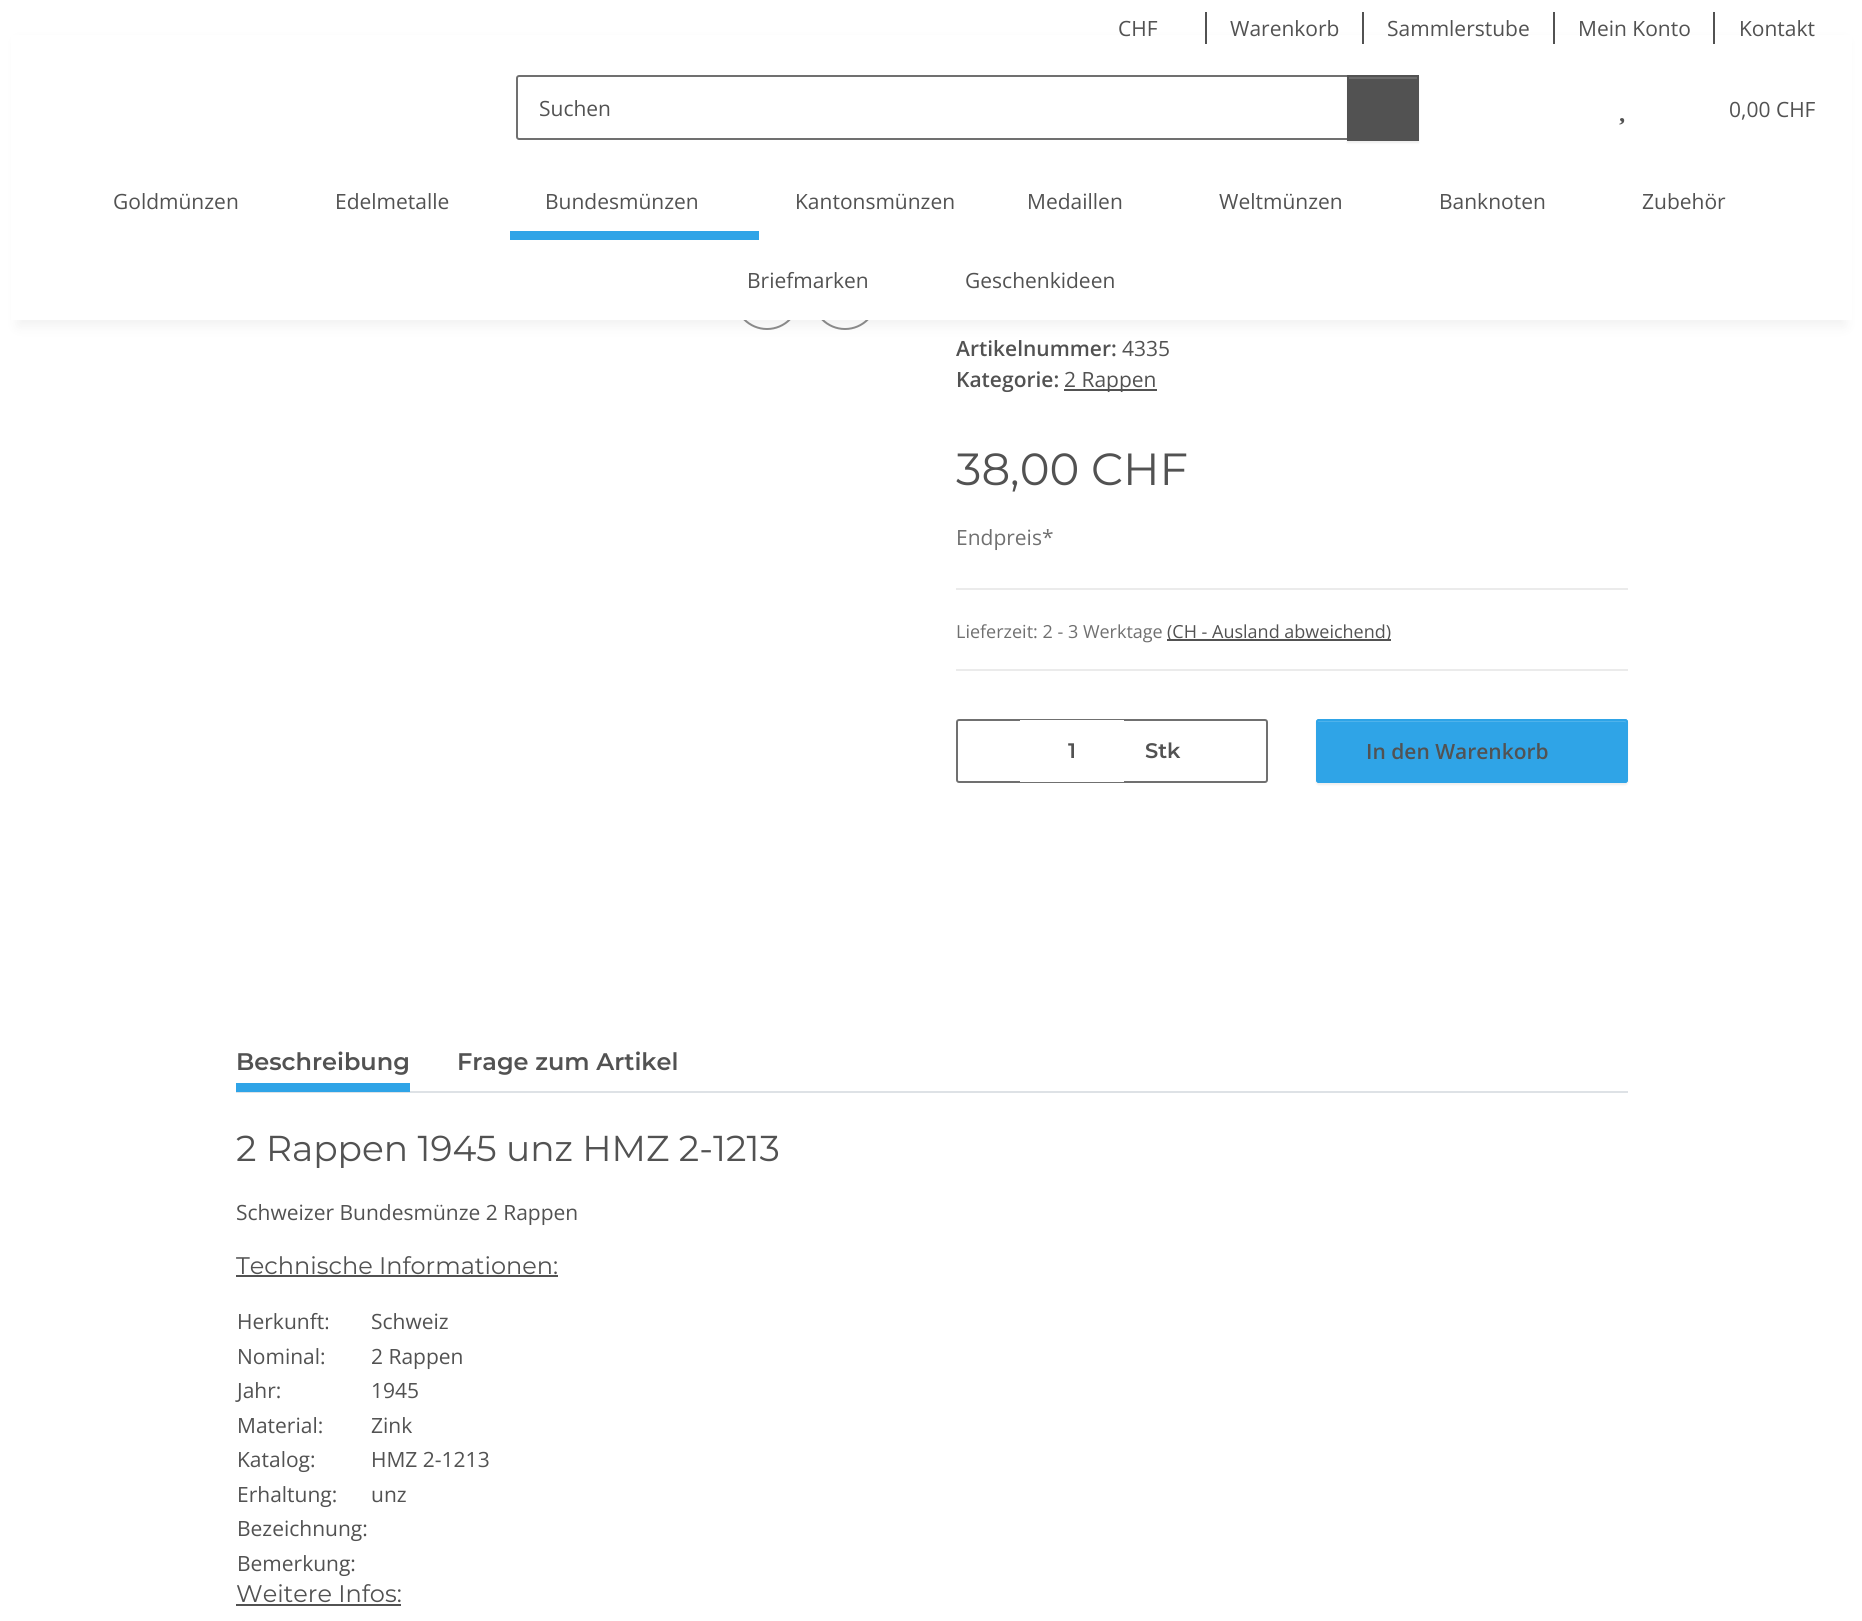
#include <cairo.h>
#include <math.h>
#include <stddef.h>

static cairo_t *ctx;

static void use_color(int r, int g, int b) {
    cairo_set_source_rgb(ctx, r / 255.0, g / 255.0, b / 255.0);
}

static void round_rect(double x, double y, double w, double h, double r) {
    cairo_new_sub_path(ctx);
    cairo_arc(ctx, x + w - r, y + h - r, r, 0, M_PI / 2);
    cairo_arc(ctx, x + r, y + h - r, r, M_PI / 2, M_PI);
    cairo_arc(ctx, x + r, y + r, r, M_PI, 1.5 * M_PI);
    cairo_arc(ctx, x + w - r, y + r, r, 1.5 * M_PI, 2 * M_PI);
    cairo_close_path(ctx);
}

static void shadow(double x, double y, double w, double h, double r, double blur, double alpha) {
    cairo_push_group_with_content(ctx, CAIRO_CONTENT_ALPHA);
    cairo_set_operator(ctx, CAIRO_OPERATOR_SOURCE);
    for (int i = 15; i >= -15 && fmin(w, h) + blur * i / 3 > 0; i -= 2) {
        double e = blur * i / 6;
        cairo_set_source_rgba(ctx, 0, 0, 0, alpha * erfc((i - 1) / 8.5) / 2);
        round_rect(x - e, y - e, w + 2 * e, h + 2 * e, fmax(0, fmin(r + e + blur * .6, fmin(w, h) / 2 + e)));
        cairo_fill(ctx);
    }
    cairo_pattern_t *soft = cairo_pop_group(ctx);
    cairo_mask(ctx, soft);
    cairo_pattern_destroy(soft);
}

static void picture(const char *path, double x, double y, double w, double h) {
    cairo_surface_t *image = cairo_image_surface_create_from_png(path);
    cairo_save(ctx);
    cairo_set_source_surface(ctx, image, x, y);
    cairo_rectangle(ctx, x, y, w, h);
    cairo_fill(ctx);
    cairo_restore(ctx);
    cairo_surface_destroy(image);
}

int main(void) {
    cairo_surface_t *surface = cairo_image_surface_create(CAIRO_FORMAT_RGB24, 1862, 1621);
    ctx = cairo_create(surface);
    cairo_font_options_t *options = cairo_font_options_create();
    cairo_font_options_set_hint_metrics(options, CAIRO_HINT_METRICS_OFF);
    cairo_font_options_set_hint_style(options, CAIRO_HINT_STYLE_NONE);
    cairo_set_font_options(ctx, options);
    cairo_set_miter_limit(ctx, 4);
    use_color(255, 255, 255);
    cairo_paint(ctx);
    cairo_arc(ctx, 767, 297, 32, 0, 2 * M_PI);
    use_color(141, 141, 141);
    cairo_stroke(ctx);
    cairo_arc(ctx, 845, 297, 32, 0, 2 * M_PI);
    cairo_stroke(ctx);
    use_color(0, 0, 0);
    shadow(18, 42, 1827, 284, 0, 7, 0.06);
    use_color(255, 255, 255);
    cairo_rectangle(ctx, 11, 35, 1841, 285);
    cairo_fill(ctx);
    cairo_select_font_face(ctx, "Open Sans", CAIRO_FONT_SLANT_NORMAL, CAIRO_FONT_WEIGHT_NORMAL);
    cairo_set_font_size(ctx, 21);
    use_color(82, 82, 82);
    cairo_move_to(ctx, 1118, 36);
    cairo_show_text(ctx, "CHF");
    cairo_rectangle(ctx, 1205, 12, 2, 32);
    cairo_fill(ctx);
    cairo_move_to(ctx, 1230, 36);
    cairo_show_text(ctx, "Warenkorb");
    cairo_rectangle(ctx, 1362, 12, 2, 32);
    cairo_fill(ctx);
    cairo_move_to(ctx, 1387, 36);
    cairo_show_text(ctx, "Sammlerstube");
    cairo_rectangle(ctx, 1553, 12, 2, 32);
    cairo_fill(ctx);
    cairo_move_to(ctx, 1578, 36);
    cairo_show_text(ctx, "Mein Konto");
    cairo_rectangle(ctx, 1713, 12, 2, 32);
    cairo_fill(ctx);
    cairo_move_to(ctx, 1739, 36);
    cairo_show_text(ctx, "Kontakt");
    cairo_new_path(ctx);
    cairo_move_to(ctx, 519, 76);
    cairo_line_to(ctx, 1348, 76);
    cairo_line_to(ctx, 1348, 139);
    cairo_line_to(ctx, 519, 139);
    cairo_curve_to(ctx, 518, 139, 517, 138, 517, 137);
    cairo_line_to(ctx, 517, 78);
    cairo_curve_to(ctx, 517, 77, 518, 76, 519, 76);
    cairo_close_path(ctx);
    use_color(112, 112, 112);
    cairo_stroke(ctx);
    use_color(82, 82, 82);
    cairo_move_to(ctx, 539, 116);
    cairo_show_text(ctx, "Suchen");
    use_color(0, 0, 0);
    shadow(1347, 77, 72, 66, 0, 1, 0.07);
    use_color(82, 82, 82);
    cairo_rectangle(ctx, 1349, 79, 68, 60);
    cairo_fill(ctx);
    use_color(108, 108, 108);
    cairo_rectangle(ctx, 1349, 77, 69, 2);
    cairo_fill(ctx);
    cairo_rectangle(ctx, 1348, 76, 70, 64);
    use_color(82, 82, 82);
    cairo_stroke(ctx);
    cairo_move_to(ctx, 1729, 117);
    cairo_show_text(ctx, "0,00 CHF");
    picture("img1.png", 1619, 118, 6, 7);
    cairo_move_to(ctx, 113, 209);
    cairo_show_text(ctx, "Goldmünzen");
    cairo_move_to(ctx, 335, 209);
    cairo_show_text(ctx, "Edelmetalle");
    cairo_move_to(ctx, 545, 209);
    cairo_show_text(ctx, "Bundesmünzen");
    use_color(47, 164, 231);
    cairo_rectangle(ctx, 510, 231, 249, 9);
    cairo_fill(ctx);
    use_color(82, 82, 82);
    cairo_move_to(ctx, 795, 209);
    cairo_show_text(ctx, "Kantonsmünzen");
    cairo_move_to(ctx, 1027, 209);
    cairo_show_text(ctx, "Medaillen");
    cairo_move_to(ctx, 1219, 209);
    cairo_show_text(ctx, "Weltmünzen");
    cairo_move_to(ctx, 1439, 209);
    cairo_show_text(ctx, "Banknoten");
    cairo_move_to(ctx, 1642, 209);
    cairo_show_text(ctx, "Zubehör");
    cairo_move_to(ctx, 747, 288);
    cairo_show_text(ctx, "Briefmarken");
    cairo_move_to(ctx, 965, 288);
    cairo_show_text(ctx, "Geschenkideen");
    cairo_select_font_face(ctx, "Open Sans SemiBold", CAIRO_FONT_SLANT_NORMAL, CAIRO_FONT_WEIGHT_NORMAL);
    cairo_move_to(ctx, 956, 356);
    cairo_show_text(ctx, "Artikelnummer:");
    cairo_select_font_face(ctx, "Open Sans", CAIRO_FONT_SLANT_NORMAL, CAIRO_FONT_WEIGHT_NORMAL);
    cairo_move_to(ctx, 1122, 356);
    cairo_show_text(ctx, "4335");
    cairo_select_font_face(ctx, "Open Sans SemiBold", CAIRO_FONT_SLANT_NORMAL, CAIRO_FONT_WEIGHT_NORMAL);
    cairo_move_to(ctx, 956, 387);
    cairo_show_text(ctx, "Kategorie:");
    cairo_rectangle(ctx, 1064, 389, 93, 2);
    cairo_fill(ctx);
    cairo_select_font_face(ctx, "Open Sans", CAIRO_FONT_SLANT_NORMAL, CAIRO_FONT_WEIGHT_NORMAL);
    cairo_move_to(ctx, 1064, 387);
    cairo_show_text(ctx, "2 Rappen");
    cairo_select_font_face(ctx, "Montserrat", CAIRO_FONT_SLANT_NORMAL, CAIRO_FONT_WEIGHT_NORMAL);
    cairo_set_font_size(ctx, 45);
    cairo_move_to(ctx, 956, 485);
    cairo_show_text(ctx, "38,00 CHF");
    cairo_select_font_face(ctx, "Open Sans", CAIRO_FONT_SLANT_NORMAL, CAIRO_FONT_WEIGHT_NORMAL);
    cairo_set_font_size(ctx, 21);
    use_color(112, 112, 112);
    cairo_move_to(ctx, 956, 545);
    cairo_show_text(ctx, "Endpreis*");
    use_color(235, 235, 235);
    cairo_rectangle(ctx, 956, 588, 672, 2);
    cairo_fill(ctx);
    cairo_rectangle(ctx, 956, 669, 672, 2);
    cairo_fill(ctx);
    cairo_set_font_size(ctx, 18);
    use_color(112, 112, 112);
    cairo_move_to(ctx, 956, 638);
    cairo_show_text(ctx, "Lieferzeit: 2 - 3 Werktage");
    use_color(82, 82, 82);
    cairo_rectangle(ctx, 1167, 639, 224, 2);
    cairo_fill(ctx);
    cairo_move_to(ctx, 1167, 638);
    cairo_show_text(ctx, "(CH - Ausland abweichend)");
    round_rect(957, 720, 310, 62, 2);
    use_color(112, 112, 112);
    cairo_stroke(ctx);
    use_color(255, 255, 255);
    cairo_rectangle(ctx, 1020, 720, 104, 62);
    cairo_fill(ctx);
    cairo_select_font_face(ctx, "Montserrat SemiBold", CAIRO_FONT_SLANT_NORMAL, CAIRO_FONT_WEIGHT_NORMAL);
    cairo_set_font_size(ctx, 21);
    use_color(82, 82, 82);
    cairo_move_to(ctx, 1068, 758);
    cairo_show_text(ctx, "1");
    cairo_move_to(ctx, 1145, 758);
    cairo_show_text(ctx, "Stk");
    use_color(0, 0, 0);
    shadow(1316, 720, 312, 65, 3, 1, 0.07);
    use_color(47, 164, 231);
    round_rect(1316, 719, 312, 64, 3);
    cairo_fill(ctx);
    use_color(78, 178, 235);
    cairo_new_path(ctx);
    cairo_move_to(ctx, 1318, 722);
    cairo_line_to(ctx, 1624, 722);
    cairo_curve_to(ctx, 1625, 722, 1626, 722, 1626, 723);
    cairo_curve_to(ctx, 1626, 722, 1626, 720, 1624, 720);
    cairo_line_to(ctx, 1318, 720);
    cairo_line_to(ctx, 1317, 721);
    cairo_line_to(ctx, 1317, 723);
    cairo_close_path(ctx);
    cairo_fill(ctx);
    round_rect(1317, 720, 310, 62, 2);
    use_color(47, 164, 231);
    cairo_stroke(ctx);
    cairo_select_font_face(ctx, "Open Sans SemiBold", CAIRO_FONT_SLANT_NORMAL, CAIRO_FONT_WEIGHT_NORMAL);
    use_color(82, 82, 82);
    cairo_move_to(ctx, 1366, 759);
    cairo_show_text(ctx, "In den Warenkorb");
    use_color(222, 226, 230);
    cairo_rectangle(ctx, 236, 1091, 1392, 2);
    cairo_fill(ctx);
    cairo_select_font_face(ctx, "Montserrat SemiBold", CAIRO_FONT_SLANT_NORMAL, CAIRO_FONT_WEIGHT_NORMAL);
    cairo_set_font_size(ctx, 24);
    use_color(82, 82, 82);
    cairo_move_to(ctx, 236, 1070);
    cairo_show_text(ctx, "Beschreibung");
    use_color(47, 164, 231);
    cairo_rectangle(ctx, 236, 1083, 174, 9);
    cairo_fill(ctx);
    use_color(82, 82, 82);
    cairo_move_to(ctx, 457, 1070);
    cairo_show_text(ctx, "Frage zum Artikel");
    cairo_select_font_face(ctx, "Montserrat", CAIRO_FONT_SLANT_NORMAL, CAIRO_FONT_WEIGHT_NORMAL);
    cairo_set_font_size(ctx, 36);
    cairo_move_to(ctx, 236, 1161);
    cairo_show_text(ctx, "2 Rappen 1945 unz HMZ 2-1213");
    cairo_select_font_face(ctx, "Open Sans", CAIRO_FONT_SLANT_NORMAL, CAIRO_FONT_WEIGHT_NORMAL);
    cairo_set_font_size(ctx, 21);
    cairo_move_to(ctx, 236, 1220);
    cairo_show_text(ctx, "Schweizer Bundesmünze 2 Rappen");
    cairo_select_font_face(ctx, "Montserrat", CAIRO_FONT_SLANT_NORMAL, CAIRO_FONT_WEIGHT_NORMAL);
    cairo_set_font_size(ctx, 24);
    cairo_move_to(ctx, 236, 1274);
    cairo_show_text(ctx, "Technische Informationen:");
    cairo_rectangle(ctx, 236, 1275, 322, 2);
    cairo_fill(ctx);
    cairo_select_font_face(ctx, "Open Sans", CAIRO_FONT_SLANT_NORMAL, CAIRO_FONT_WEIGHT_NORMAL);
    cairo_set_font_size(ctx, 21);
    cairo_move_to(ctx, 237, 1329);
    cairo_show_text(ctx, "Herkunft:");
    cairo_move_to(ctx, 371, 1329);
    cairo_show_text(ctx, "Schweiz");
    cairo_move_to(ctx, 237, 1364);
    cairo_show_text(ctx, "Nominal:");
    cairo_move_to(ctx, 371, 1364);
    cairo_show_text(ctx, "2 Rappen");
    cairo_move_to(ctx, 237, 1398);
    cairo_show_text(ctx, "Jahr:");
    cairo_move_to(ctx, 371, 1398);
    cairo_show_text(ctx, "1945");
    cairo_move_to(ctx, 237, 1433);
    cairo_show_text(ctx, "Material:");
    cairo_move_to(ctx, 371, 1433);
    cairo_show_text(ctx, "Zink");
    cairo_move_to(ctx, 237, 1467);
    cairo_show_text(ctx, "Katalog:");
    cairo_move_to(ctx, 371, 1467);
    cairo_show_text(ctx, "HMZ 2-1213");
    cairo_move_to(ctx, 237, 1502);
    cairo_show_text(ctx, "Erhaltung:");
    cairo_move_to(ctx, 371, 1502);
    cairo_show_text(ctx, "unz");
    cairo_move_to(ctx, 237, 1536);
    cairo_show_text(ctx, "Bezeichnung:");
    cairo_move_to(ctx, 237, 1571);
    cairo_show_text(ctx, "Bemerkung:");
    cairo_select_font_face(ctx, "Montserrat", CAIRO_FONT_SLANT_NORMAL, CAIRO_FONT_WEIGHT_NORMAL);
    cairo_set_font_size(ctx, 24);
    cairo_move_to(ctx, 236, 1602);
    cairo_show_text(ctx, "Weitere Infos:");
    cairo_rectangle(ctx, 236, 1604, 165, 2);
    cairo_fill(ctx);
    cairo_surface_write_to_png(surface, "result.png");
    cairo_font_options_destroy(options);
    cairo_destroy(ctx);
    cairo_surface_destroy(surface);
    return 0;
}
